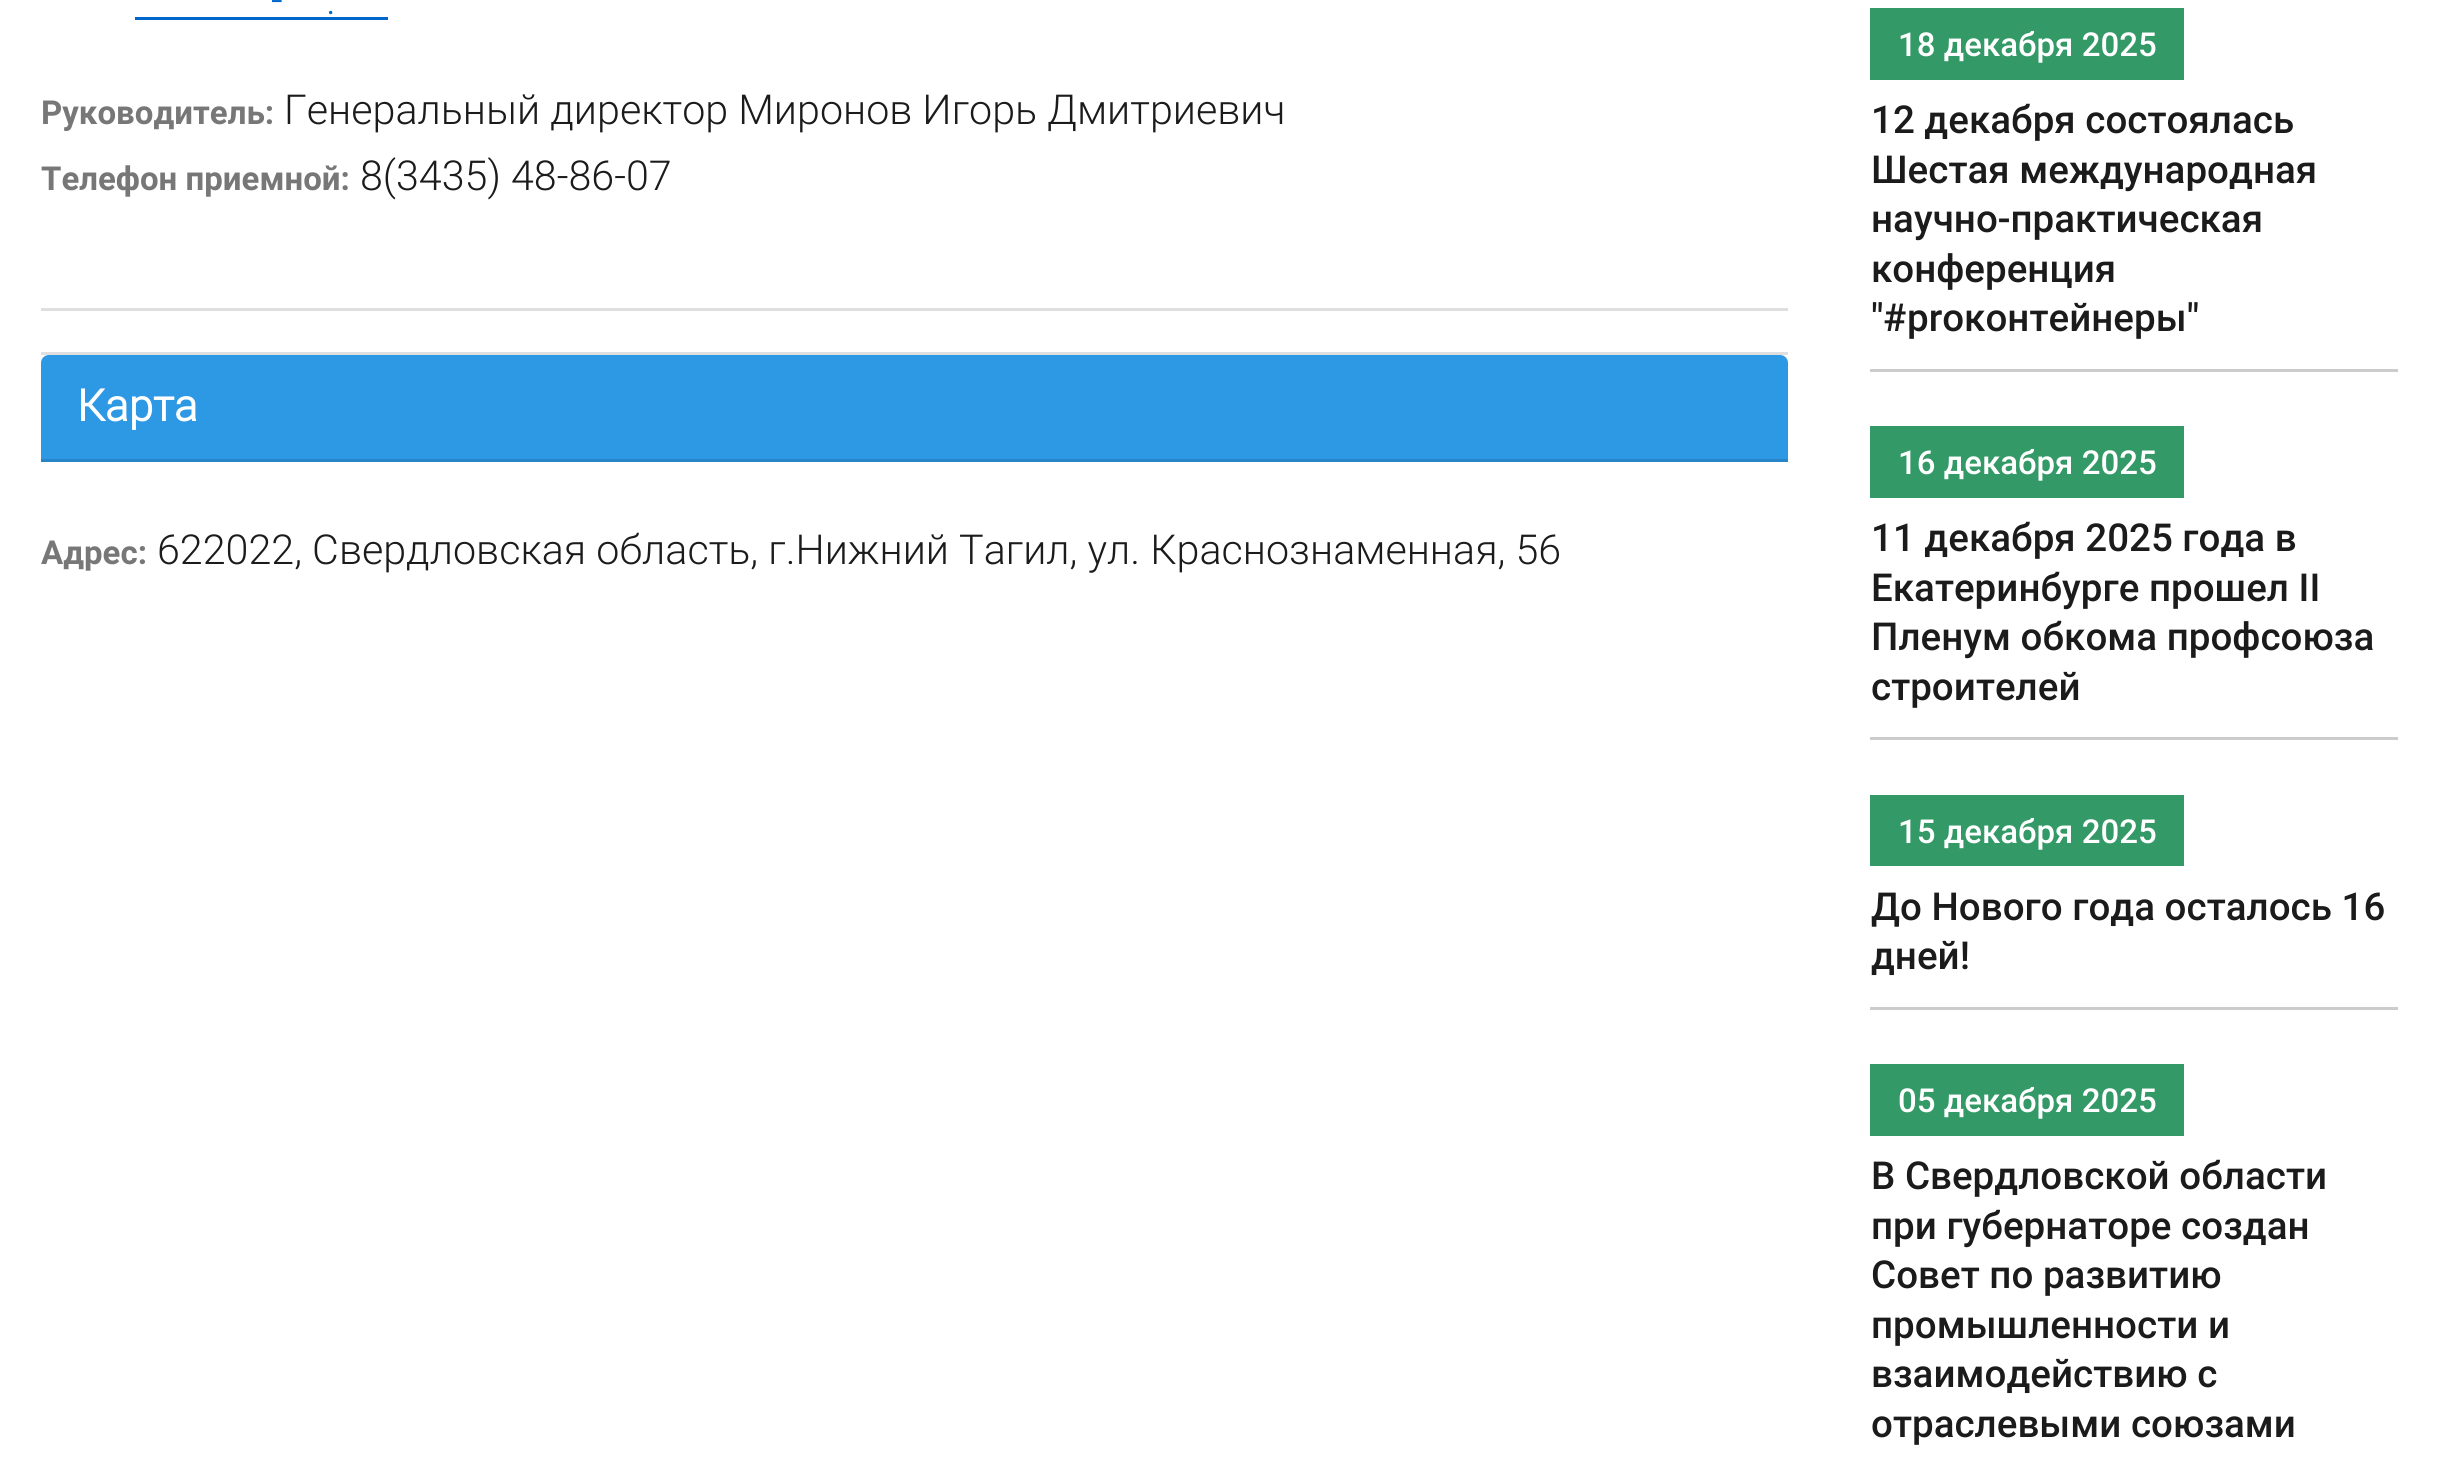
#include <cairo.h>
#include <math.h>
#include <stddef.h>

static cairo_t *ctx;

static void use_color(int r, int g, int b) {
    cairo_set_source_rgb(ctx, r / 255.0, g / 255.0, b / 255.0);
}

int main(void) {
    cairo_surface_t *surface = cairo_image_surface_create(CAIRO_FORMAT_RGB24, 2438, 1465);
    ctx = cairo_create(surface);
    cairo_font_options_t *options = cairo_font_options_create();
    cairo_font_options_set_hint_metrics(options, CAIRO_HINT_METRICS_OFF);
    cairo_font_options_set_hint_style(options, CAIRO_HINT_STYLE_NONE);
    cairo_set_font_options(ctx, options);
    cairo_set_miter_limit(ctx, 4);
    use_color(255, 255, 255);
    cairo_paint(ctx);
    use_color(223, 223, 223);
    cairo_rectangle(ctx, 41, 308, 1747, 3);
    cairo_fill(ctx);
    cairo_select_font_face(ctx, "Roboto Light", CAIRO_FONT_SLANT_NORMAL, CAIRO_FONT_WEIGHT_NORMAL);
    cairo_set_font_size(ctx, 41.25);
    use_color(0, 102, 204);
    cairo_move_to(ctx, 271, 14);
    cairo_show_text(ctx, "-");
    cairo_move_to(ctx, 326, 14);
    cairo_show_text(ctx, ".");
    cairo_rectangle(ctx, 135, 17, 253, 3);
    cairo_fill(ctx);
    cairo_select_font_face(ctx, "Roboto", CAIRO_FONT_SLANT_NORMAL, CAIRO_FONT_WEIGHT_BOLD);
    cairo_set_font_size(ctx, 33);
    use_color(119, 119, 119);
    cairo_move_to(ctx, 41, 124);
    cairo_show_text(ctx, "Руководитель:");
    cairo_select_font_face(ctx, "Roboto Light", CAIRO_FONT_SLANT_NORMAL, CAIRO_FONT_WEIGHT_NORMAL);
    cairo_set_font_size(ctx, 41.25);
    use_color(27, 27, 27);
    cairo_move_to(ctx, 284, 124);
    cairo_show_text(ctx, "Генеральный директор Миронов Игорь Дмитриевич");
    cairo_select_font_face(ctx, "Roboto", CAIRO_FONT_SLANT_NORMAL, CAIRO_FONT_WEIGHT_BOLD);
    cairo_set_font_size(ctx, 33);
    use_color(119, 119, 119);
    cairo_move_to(ctx, 41, 190);
    cairo_show_text(ctx, "Телефон приемной:");
    cairo_select_font_face(ctx, "Roboto Light", CAIRO_FONT_SLANT_NORMAL, CAIRO_FONT_WEIGHT_NORMAL);
    cairo_set_font_size(ctx, 41.25);
    use_color(27, 27, 27);
    cairo_move_to(ctx, 360, 190);
    cairo_show_text(ctx, "8(3435) 48-86-07");
    use_color(223, 223, 223);
    cairo_rectangle(ctx, 41, 352, 1747, 3);
    cairo_fill(ctx);
    use_color(45, 152, 228);
    cairo_new_path(ctx);
    cairo_move_to(ctx, 49, 355);
    cairo_line_to(ctx, 1780, 355);
    cairo_curve_to(ctx, 1784.5, 355, 1788, 358.5, 1788, 363);
    cairo_line_to(ctx, 1788, 462);
    cairo_line_to(ctx, 41, 462);
    cairo_line_to(ctx, 41, 363);
    cairo_curve_to(ctx, 41, 358.5, 44.5, 355, 49, 355);
    cairo_close_path(ctx);
    cairo_fill(ctx);
    use_color(39, 133, 200);
    cairo_rectangle(ctx, 41, 459, 1747, 3);
    cairo_fill(ctx);
    cairo_select_font_face(ctx, "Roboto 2", CAIRO_FONT_SLANT_NORMAL, CAIRO_FONT_WEIGHT_BOLD);
    cairo_set_font_size(ctx, 44);
    use_color(255, 255, 255);
    cairo_move_to(ctx, 77, 421);
    cairo_show_text(ctx, "Карта");
    cairo_select_font_face(ctx, "Roboto", CAIRO_FONT_SLANT_NORMAL, CAIRO_FONT_WEIGHT_BOLD);
    cairo_set_font_size(ctx, 33);
    use_color(119, 119, 119);
    cairo_move_to(ctx, 41, 564);
    cairo_show_text(ctx, "Адрес:");
    cairo_select_font_face(ctx, "Roboto Light", CAIRO_FONT_SLANT_NORMAL, CAIRO_FONT_WEIGHT_NORMAL);
    cairo_set_font_size(ctx, 41.25);
    use_color(27, 27, 27);
    cairo_move_to(ctx, 157, 564);
    cairo_show_text(ctx, "622022, Свердловская область, г.Нижний Тагил, ул. Краснознаменная, 56");
    use_color(204, 204, 204);
    cairo_rectangle(ctx, 1870, 369, 528, 3);
    cairo_fill(ctx);
    use_color(51, 153, 102);
    cairo_rectangle(ctx, 1870, 8, 314, 72);
    cairo_fill(ctx);
    cairo_select_font_face(ctx, "Roboto Medium", CAIRO_FONT_SLANT_NORMAL, CAIRO_FONT_WEIGHT_NORMAL);
    cairo_set_font_size(ctx, 33);
    use_color(255, 255, 255);
    cairo_move_to(ctx, 1898, 56);
    cairo_show_text(ctx, "18 декабря 2025");
    cairo_set_font_size(ctx, 38.5);
    use_color(27, 27, 27);
    cairo_move_to(ctx, 1871, 133);
    cairo_show_text(ctx, "12 декабря состоялась");
    cairo_move_to(ctx, 1871, 183);
    cairo_show_text(ctx, "Шестая международная");
    cairo_move_to(ctx, 1871, 232);
    cairo_show_text(ctx, "научно-практическая");
    cairo_move_to(ctx, 1871, 282);
    cairo_show_text(ctx, "конференция");
    cairo_move_to(ctx, 1871, 331);
    cairo_show_text(ctx, "\"#proконтейнеры\"");
    use_color(204, 204, 204);
    cairo_rectangle(ctx, 1870, 737, 528, 3);
    cairo_fill(ctx);
    use_color(51, 153, 102);
    cairo_rectangle(ctx, 1870, 426, 314, 72);
    cairo_fill(ctx);
    cairo_set_font_size(ctx, 33);
    use_color(255, 255, 255);
    cairo_move_to(ctx, 1898, 474);
    cairo_show_text(ctx, "16 декабря 2025");
    cairo_set_font_size(ctx, 38.5);
    use_color(27, 27, 27);
    cairo_move_to(ctx, 1871, 551);
    cairo_show_text(ctx, "11 декабря 2025 года в");
    cairo_move_to(ctx, 1871, 601);
    cairo_show_text(ctx, "Екатеринбурге прошел II");
    cairo_move_to(ctx, 1871, 650);
    cairo_show_text(ctx, "Пленум обкома профсоюза");
    cairo_move_to(ctx, 1871, 700);
    cairo_show_text(ctx, "строителей");
    use_color(204, 204, 204);
    cairo_rectangle(ctx, 1870, 1007, 528, 3);
    cairo_fill(ctx);
    use_color(51, 153, 102);
    cairo_rectangle(ctx, 1870, 795, 314, 71);
    cairo_fill(ctx);
    cairo_set_font_size(ctx, 33);
    use_color(255, 255, 255);
    cairo_move_to(ctx, 1898, 843);
    cairo_show_text(ctx, "15 декабря 2025");
    cairo_set_font_size(ctx, 38.5);
    use_color(27, 27, 27);
    cairo_move_to(ctx, 1871, 920);
    cairo_show_text(ctx, "До Нового года осталось 16");
    cairo_move_to(ctx, 1871, 969);
    cairo_show_text(ctx, "дней!");
    use_color(51, 153, 102);
    cairo_rectangle(ctx, 1870, 1064, 314, 72);
    cairo_fill(ctx);
    cairo_set_font_size(ctx, 33);
    use_color(255, 255, 255);
    cairo_move_to(ctx, 1898, 1112);
    cairo_show_text(ctx, "05 декабря 2025");
    cairo_set_font_size(ctx, 38.5);
    use_color(27, 27, 27);
    cairo_move_to(ctx, 1871, 1189);
    cairo_show_text(ctx, "В Свердловской области");
    cairo_move_to(ctx, 1871, 1239);
    cairo_show_text(ctx, "при губернаторе создан");
    cairo_move_to(ctx, 1871, 1288);
    cairo_show_text(ctx, "Совет по развитию");
    cairo_move_to(ctx, 1871, 1338);
    cairo_show_text(ctx, "промышленности и");
    cairo_move_to(ctx, 1871, 1387);
    cairo_show_text(ctx, "взаимодействию с");
    cairo_move_to(ctx, 1871, 1437);
    cairo_show_text(ctx, "отраслевыми союзами");
    cairo_surface_write_to_png(surface, "result.png");
    cairo_font_options_destroy(options);
    cairo_destroy(ctx);
    cairo_surface_destroy(surface);
    return 0;
}
